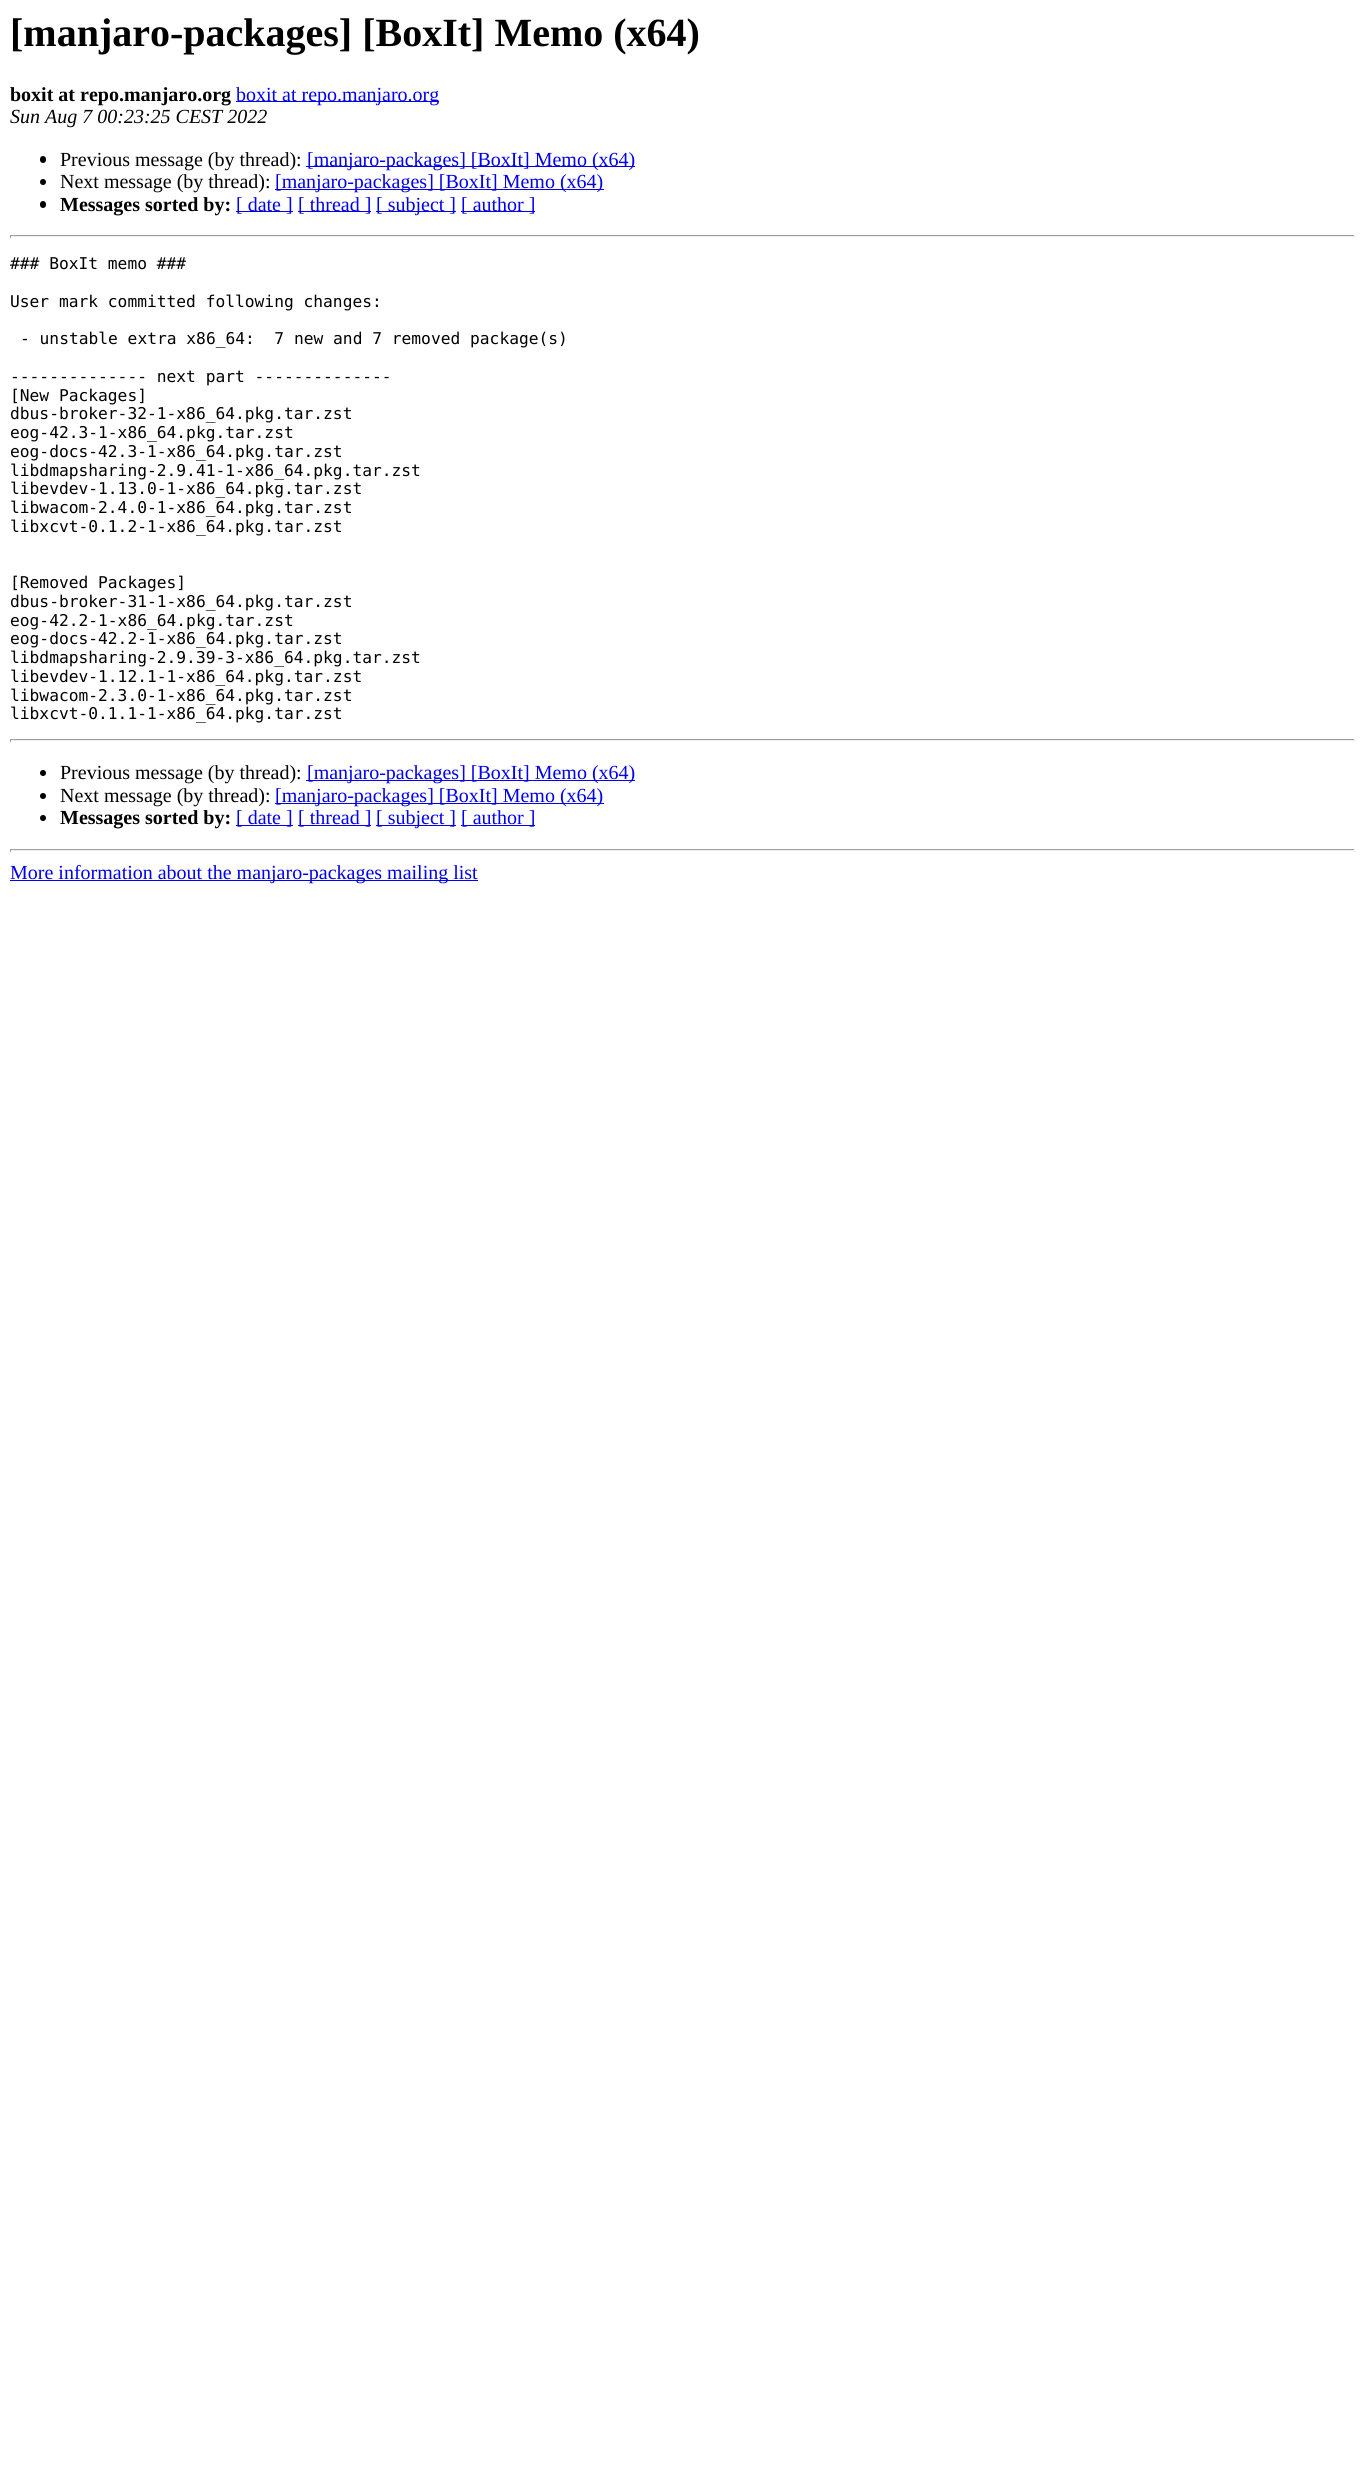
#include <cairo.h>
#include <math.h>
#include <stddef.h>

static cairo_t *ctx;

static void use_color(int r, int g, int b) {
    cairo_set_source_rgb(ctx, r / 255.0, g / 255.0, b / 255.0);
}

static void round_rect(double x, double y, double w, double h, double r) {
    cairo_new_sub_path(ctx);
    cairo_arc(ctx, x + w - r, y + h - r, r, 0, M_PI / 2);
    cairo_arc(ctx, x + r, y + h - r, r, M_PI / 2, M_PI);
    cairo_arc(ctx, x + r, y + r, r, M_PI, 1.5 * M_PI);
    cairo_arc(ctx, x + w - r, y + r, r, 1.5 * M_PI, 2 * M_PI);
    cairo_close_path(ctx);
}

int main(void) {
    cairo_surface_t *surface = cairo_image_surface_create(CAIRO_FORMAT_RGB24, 1365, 2488);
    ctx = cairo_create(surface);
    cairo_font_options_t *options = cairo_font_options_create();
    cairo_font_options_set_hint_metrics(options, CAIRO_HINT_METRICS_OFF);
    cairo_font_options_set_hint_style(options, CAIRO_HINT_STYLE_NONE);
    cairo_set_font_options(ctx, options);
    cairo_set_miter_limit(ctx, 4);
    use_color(255, 255, 255);
    cairo_paint(ctx);
    cairo_select_font_face(ctx, "Liberation Serif", CAIRO_FONT_SLANT_NORMAL, CAIRO_FONT_WEIGHT_BOLD);
    cairo_set_font_size(ctx, 40);
    use_color(0, 0, 0);
    cairo_move_to(ctx, 10, 46);
    cairo_show_text(ctx, "[manjaro-packages] [BoxIt] Memo (x64)");
    cairo_set_font_size(ctx, 20);
    cairo_move_to(ctx, 10, 101);
    cairo_show_text(ctx, "boxit at repo.manjaro.org");
    use_color(0, 0, 238);
    cairo_rectangle(ctx, 236, 101, 203, 1);
    cairo_fill(ctx);
    cairo_select_font_face(ctx, "Liberation Serif", CAIRO_FONT_SLANT_NORMAL, CAIRO_FONT_WEIGHT_NORMAL);
    cairo_move_to(ctx, 236, 101);
    cairo_show_text(ctx, "boxit at repo.manjaro.org");
    cairo_select_font_face(ctx, "Liberation Serif", CAIRO_FONT_SLANT_ITALIC, CAIRO_FONT_WEIGHT_NORMAL);
    use_color(0, 0, 0);
    cairo_move_to(ctx, 10, 123);
    cairo_show_text(ctx, "Sun Aug 7 00:23:25 CEST 2022");
    round_rect(40, 156, 6, 7, 3);
    cairo_fill(ctx);
    cairo_select_font_face(ctx, "Liberation Serif", CAIRO_FONT_SLANT_NORMAL, CAIRO_FONT_WEIGHT_NORMAL);
    cairo_move_to(ctx, 60, 166);
    cairo_show_text(ctx, "Previous message (by thread):");
    use_color(0, 0, 238);
    cairo_rectangle(ctx, 306, 166, 329, 1);
    cairo_fill(ctx);
    cairo_move_to(ctx, 307, 166);
    cairo_show_text(ctx, "[manjaro-packages] [BoxIt] Memo (x64)");
    use_color(0, 0, 0);
    cairo_new_path(ctx);
    cairo_arc(ctx, 43, 182, 3, 0, 2 * M_PI);
    cairo_fill(ctx);
    cairo_move_to(ctx, 60, 188);
    cairo_show_text(ctx, "Next message (by thread):");
    use_color(0, 0, 238);
    cairo_rectangle(ctx, 275, 189, 329, 1);
    cairo_fill(ctx);
    cairo_move_to(ctx, 275, 188);
    cairo_show_text(ctx, "[manjaro-packages] [BoxIt] Memo (x64)");
    use_color(0, 0, 0);
    round_rect(40, 201, 6, 7, 3);
    cairo_fill(ctx);
    cairo_select_font_face(ctx, "Liberation Serif", CAIRO_FONT_SLANT_NORMAL, CAIRO_FONT_WEIGHT_BOLD);
    cairo_move_to(ctx, 60, 211);
    cairo_show_text(ctx, "Messages sorted by:");
    use_color(0, 0, 238);
    cairo_rectangle(ctx, 236, 211, 57, 1);
    cairo_fill(ctx);
    cairo_select_font_face(ctx, "Liberation Serif", CAIRO_FONT_SLANT_NORMAL, CAIRO_FONT_WEIGHT_NORMAL);
    cairo_move_to(ctx, 236, 211);
    cairo_show_text(ctx, "[ date ]");
    cairo_rectangle(ctx, 298, 211, 73, 1);
    cairo_fill(ctx);
    cairo_move_to(ctx, 298, 211);
    cairo_show_text(ctx, "[ thread ]");
    cairo_rectangle(ctx, 376, 211, 80, 1);
    cairo_fill(ctx);
    cairo_move_to(ctx, 376, 211);
    cairo_show_text(ctx, "[ subject ]");
    cairo_rectangle(ctx, 461, 211, 74, 1);
    cairo_fill(ctx);
    cairo_move_to(ctx, 461, 211);
    cairo_show_text(ctx, "[ author ]");
    use_color(159, 159, 159);
    cairo_rectangle(ctx, 10, 235, 1345, 1);
    cairo_fill(ctx);
    use_color(238, 238, 238);
    cairo_rectangle(ctx, 1354, 235, 1, 3);
    cairo_fill(ctx);
    cairo_rectangle(ctx, 10, 236, 1345, 1);
    cairo_fill(ctx);
    use_color(159, 159, 159);
    cairo_rectangle(ctx, 10, 235, 1, 3);
    cairo_fill(ctx);
    cairo_select_font_face(ctx, "DejaVu Sans Mono", CAIRO_FONT_SLANT_NORMAL, CAIRO_FONT_WEIGHT_NORMAL);
    cairo_set_font_size(ctx, 16.25);
    use_color(0, 0, 0);
    cairo_move_to(ctx, 10, 269);
    cairo_show_text(ctx, "### BoxIt memo ###");
    cairo_move_to(ctx, 10, 307);
    cairo_show_text(ctx, "User mark committed following changes:");
    cairo_move_to(ctx, 20, 344);
    cairo_show_text(ctx, "- unstable extra x86_64:  7 new and 7 removed package(s)");
    cairo_move_to(ctx, 10, 382);
    cairo_show_text(ctx, "-------------- next part --------------");
    cairo_move_to(ctx, 10, 401);
    cairo_show_text(ctx, "[New Packages]");
    cairo_move_to(ctx, 10, 419);
    cairo_show_text(ctx, "dbus-broker-32-1-x86_64.pkg.tar.zst");
    cairo_move_to(ctx, 10, 438);
    cairo_show_text(ctx, "eog-42.3-1-x86_64.pkg.tar.zst");
    cairo_move_to(ctx, 10, 457);
    cairo_show_text(ctx, "eog-docs-42.3-1-x86_64.pkg.tar.zst");
    cairo_move_to(ctx, 10, 476);
    cairo_show_text(ctx, "libdmapsharing-2.9.41-1-x86_64.pkg.tar.zst");
    cairo_move_to(ctx, 10, 494);
    cairo_show_text(ctx, "libevdev-1.13.0-1-x86_64.pkg.tar.zst");
    cairo_move_to(ctx, 10, 513);
    cairo_show_text(ctx, "libwacom-2.4.0-1-x86_64.pkg.tar.zst");
    cairo_move_to(ctx, 10, 532);
    cairo_show_text(ctx, "libxcvt-0.1.2-1-x86_64.pkg.tar.zst");
    cairo_move_to(ctx, 10, 588);
    cairo_show_text(ctx, "[Removed Packages]");
    cairo_move_to(ctx, 10, 607);
    cairo_show_text(ctx, "dbus-broker-31-1-x86_64.pkg.tar.zst");
    cairo_move_to(ctx, 10, 626);
    cairo_show_text(ctx, "eog-42.2-1-x86_64.pkg.tar.zst");
    cairo_move_to(ctx, 10, 644);
    cairo_show_text(ctx, "eog-docs-42.2-1-x86_64.pkg.tar.zst");
    cairo_move_to(ctx, 10, 663);
    cairo_show_text(ctx, "libdmapsharing-2.9.39-3-x86_64.pkg.tar.zst");
    cairo_move_to(ctx, 10, 682);
    cairo_show_text(ctx, "libevdev-1.12.1-1-x86_64.pkg.tar.zst");
    cairo_move_to(ctx, 10, 701);
    cairo_show_text(ctx, "libwacom-2.3.0-1-x86_64.pkg.tar.zst");
    cairo_move_to(ctx, 10, 719);
    cairo_show_text(ctx, "libxcvt-0.1.1-1-x86_64.pkg.tar.zst");
    use_color(159, 159, 159);
    cairo_rectangle(ctx, 10, 739, 1345, 1);
    cairo_fill(ctx);
    use_color(238, 238, 238);
    cairo_rectangle(ctx, 1354, 739, 1, 3);
    cairo_fill(ctx);
    cairo_rectangle(ctx, 10, 740, 1345, 1);
    cairo_fill(ctx);
    use_color(159, 159, 159);
    cairo_rectangle(ctx, 10, 739, 1, 3);
    cairo_fill(ctx);
    use_color(0, 0, 0);
    cairo_arc(ctx, 43, 773, 3, 0, 2 * M_PI);
    cairo_fill(ctx);
    cairo_select_font_face(ctx, "Liberation Serif", CAIRO_FONT_SLANT_NORMAL, CAIRO_FONT_WEIGHT_NORMAL);
    cairo_set_font_size(ctx, 20);
    cairo_move_to(ctx, 60, 779);
    cairo_show_text(ctx, "Previous message (by thread):");
    use_color(0, 0, 238);
    cairo_rectangle(ctx, 306, 780, 329, 1);
    cairo_fill(ctx);
    cairo_move_to(ctx, 307, 779);
    cairo_show_text(ctx, "[manjaro-packages] [BoxIt] Memo (x64)");
    use_color(0, 0, 0);
    cairo_new_path(ctx);
    cairo_arc(ctx, 43, 796, 3, 0, 2 * M_PI);
    cairo_fill(ctx);
    cairo_move_to(ctx, 60, 802);
    cairo_show_text(ctx, "Next message (by thread):");
    use_color(0, 0, 238);
    cairo_rectangle(ctx, 275, 803, 329, 1);
    cairo_fill(ctx);
    cairo_move_to(ctx, 275, 802);
    cairo_show_text(ctx, "[manjaro-packages] [BoxIt] Memo (x64)");
    use_color(0, 0, 0);
    cairo_new_path(ctx);
    cairo_arc(ctx, 43, 818, 3, 0, 2 * M_PI);
    cairo_fill(ctx);
    cairo_select_font_face(ctx, "Liberation Serif", CAIRO_FONT_SLANT_NORMAL, CAIRO_FONT_WEIGHT_BOLD);
    cairo_move_to(ctx, 60, 824);
    cairo_show_text(ctx, "Messages sorted by:");
    use_color(0, 0, 238);
    cairo_rectangle(ctx, 236, 825, 57, 1);
    cairo_fill(ctx);
    cairo_select_font_face(ctx, "Liberation Serif", CAIRO_FONT_SLANT_NORMAL, CAIRO_FONT_WEIGHT_NORMAL);
    cairo_move_to(ctx, 236, 824);
    cairo_show_text(ctx, "[ date ]");
    cairo_rectangle(ctx, 298, 825, 73, 1);
    cairo_fill(ctx);
    cairo_move_to(ctx, 298, 824);
    cairo_show_text(ctx, "[ thread ]");
    cairo_rectangle(ctx, 376, 825, 80, 1);
    cairo_fill(ctx);
    cairo_move_to(ctx, 376, 824);
    cairo_show_text(ctx, "[ subject ]");
    cairo_rectangle(ctx, 461, 825, 74, 1);
    cairo_fill(ctx);
    cairo_move_to(ctx, 461, 824);
    cairo_show_text(ctx, "[ author ]");
    use_color(159, 159, 159);
    cairo_rectangle(ctx, 10, 849, 1345, 1);
    cairo_fill(ctx);
    use_color(238, 238, 238);
    cairo_rectangle(ctx, 1354, 849, 1, 3);
    cairo_fill(ctx);
    cairo_rectangle(ctx, 10, 850, 1345, 1);
    cairo_fill(ctx);
    use_color(159, 159, 159);
    cairo_rectangle(ctx, 10, 849, 1, 3);
    cairo_fill(ctx);
    use_color(0, 0, 238);
    cairo_rectangle(ctx, 10, 880, 468, 1);
    cairo_fill(ctx);
    cairo_move_to(ctx, 10, 879);
    cairo_show_text(ctx, "More information about the manjaro-packages mailing list");
    cairo_surface_write_to_png(surface, "result.png");
    cairo_font_options_destroy(options);
    cairo_destroy(ctx);
    cairo_surface_destroy(surface);
    return 0;
}
